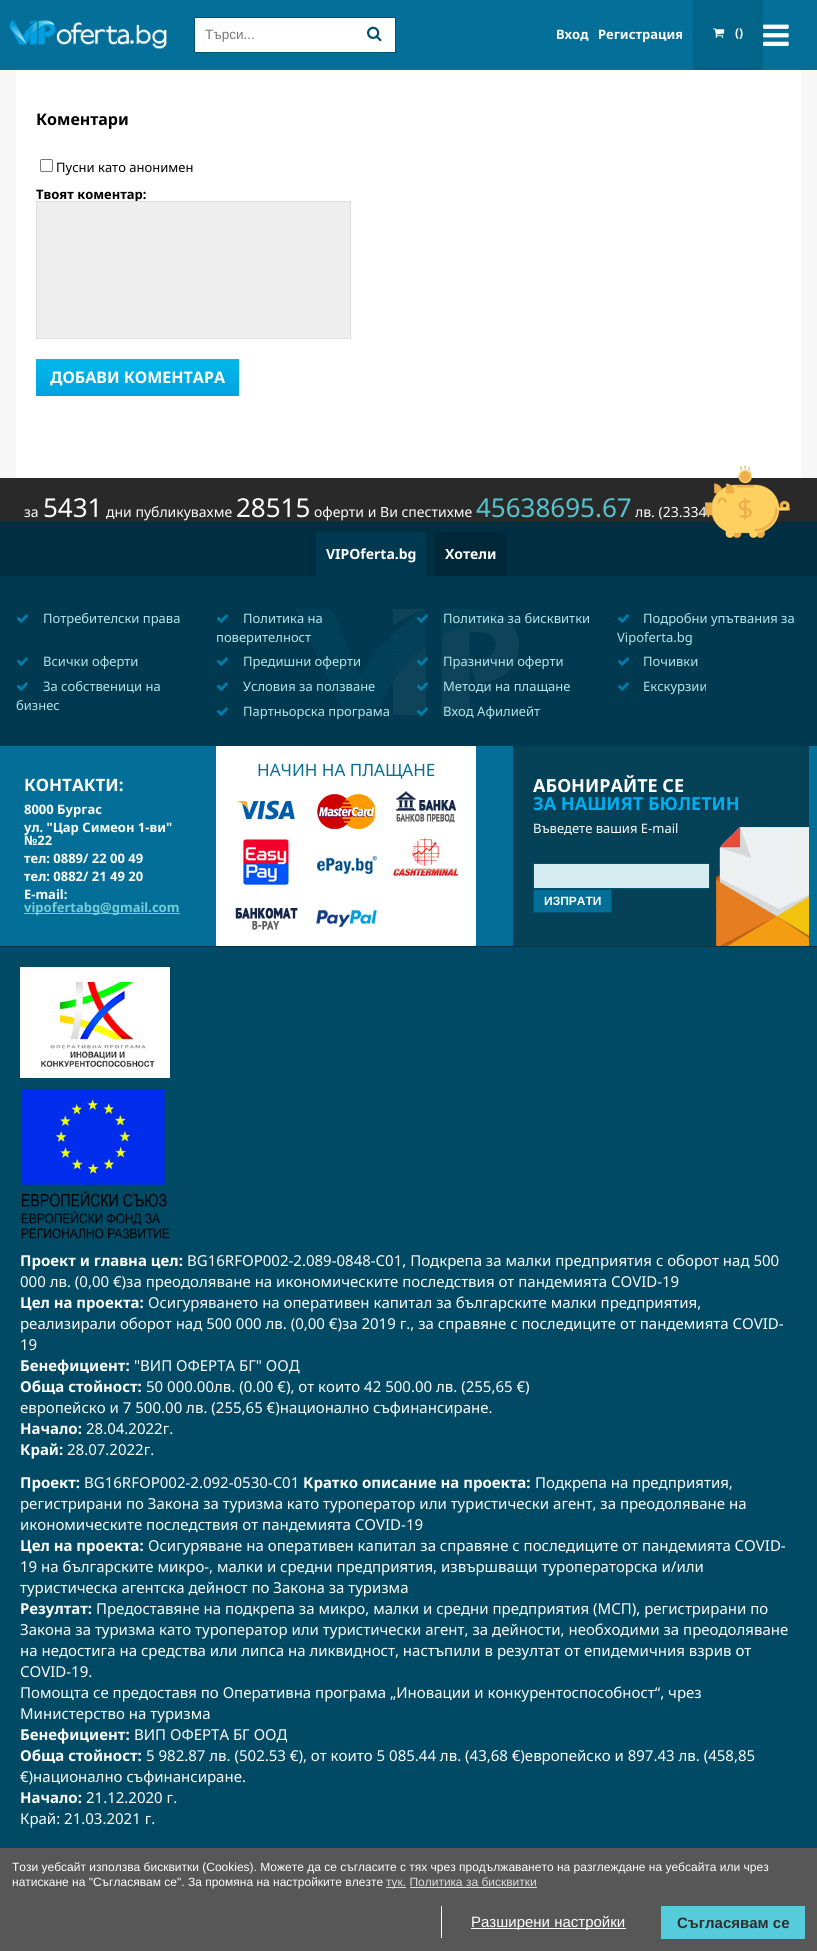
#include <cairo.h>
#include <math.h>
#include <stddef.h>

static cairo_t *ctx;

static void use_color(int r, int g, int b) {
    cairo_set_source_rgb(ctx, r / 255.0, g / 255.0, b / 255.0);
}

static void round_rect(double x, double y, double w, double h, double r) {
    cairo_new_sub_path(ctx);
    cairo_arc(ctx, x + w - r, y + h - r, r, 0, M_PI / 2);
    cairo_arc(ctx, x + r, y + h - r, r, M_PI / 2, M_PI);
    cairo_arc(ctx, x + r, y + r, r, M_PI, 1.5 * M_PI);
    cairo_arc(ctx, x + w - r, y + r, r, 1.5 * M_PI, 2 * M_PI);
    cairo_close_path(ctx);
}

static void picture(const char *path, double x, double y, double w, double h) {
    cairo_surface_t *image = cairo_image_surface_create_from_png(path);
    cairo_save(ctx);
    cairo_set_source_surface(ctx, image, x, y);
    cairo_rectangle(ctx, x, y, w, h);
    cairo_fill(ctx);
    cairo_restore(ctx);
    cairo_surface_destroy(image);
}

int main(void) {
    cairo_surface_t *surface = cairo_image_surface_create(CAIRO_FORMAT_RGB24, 817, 1951);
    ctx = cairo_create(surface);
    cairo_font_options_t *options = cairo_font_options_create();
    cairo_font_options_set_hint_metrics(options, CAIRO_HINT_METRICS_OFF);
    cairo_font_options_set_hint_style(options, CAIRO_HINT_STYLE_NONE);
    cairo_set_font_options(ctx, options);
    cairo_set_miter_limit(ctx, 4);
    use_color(247, 247, 247);
    cairo_paint(ctx);
    use_color(4, 111, 153);
    cairo_rectangle(ctx, 0, 0, 817, 70);
    cairo_fill(ctx);
    picture("img1.png", 9, 19, 158, 30);
    use_color(255, 255, 255);
    cairo_rectangle(ctx, 194.5, 17.5, 201, 35);
    cairo_fill_preserve(ctx);
    use_color(2, 81, 110);
    cairo_set_line_width(ctx, 1);
    cairo_stroke(ctx);
    cairo_select_font_face(ctx, "Liberation Sans", CAIRO_FONT_SLANT_NORMAL, CAIRO_FONT_WEIGHT_NORMAL);
    cairo_set_font_size(ctx, 13.5);
    use_color(117, 117, 117);
    cairo_move_to(ctx, 205, 39);
    cairo_show_text(ctx, "Търси...");
    picture("img2.png", 367, 26, 15, 16);
    cairo_select_font_face(ctx, "Noto Sans", CAIRO_FONT_SLANT_NORMAL, CAIRO_FONT_WEIGHT_BOLD);
    cairo_set_font_size(ctx, 13);
    use_color(255, 255, 255);
    cairo_move_to(ctx, 556, 39);
    cairo_show_text(ctx, "Вход");
    cairo_move_to(ctx, 598, 39);
    cairo_show_text(ctx, "Регистрация");
    use_color(2, 100, 137);
    cairo_rectangle(ctx, 693, 0, 70, 70);
    cairo_fill(ctx);
    picture("img3.png", 713, 28, 12, 10);
    cairo_set_font_size(ctx, 12);
    use_color(255, 255, 255);
    cairo_move_to(ctx, 735, 37);
    cairo_show_text(ctx, "()");
    picture("img4.png", 763, 24, 26, 22);
    cairo_rectangle(ctx, 16, 70, 785, 408);
    cairo_fill(ctx);
    cairo_set_font_size(ctx, 16);
    use_color(0, 0, 0);
    cairo_move_to(ctx, 36, 125);
    cairo_show_text(ctx, "Коментари");
    round_rect(40.5, 159.5, 12, 12, 1.5);
    use_color(118, 118, 118);
    cairo_stroke(ctx);
    cairo_select_font_face(ctx, "Noto Sans", CAIRO_FONT_SLANT_NORMAL, CAIRO_FONT_WEIGHT_NORMAL);
    cairo_set_font_size(ctx, 13);
    use_color(0, 0, 0);
    cairo_move_to(ctx, 56, 172);
    cairo_show_text(ctx, "Пусни като анонимен");
    cairo_select_font_face(ctx, "Noto Sans", CAIRO_FONT_SLANT_NORMAL, CAIRO_FONT_WEIGHT_BOLD);
    cairo_move_to(ctx, 36, 199);
    cairo_show_text(ctx, "Твоят коментар:");
    use_color(238, 238, 238);
    cairo_rectangle(ctx, 36.5, 201.5, 314, 137);
    cairo_fill_preserve(ctx);
    use_color(222, 222, 222);
    cairo_stroke(ctx);
    picture("img5.png", 36, 359, 203, 37);
    cairo_set_font_size(ctx, 16);
    use_color(255, 255, 255);
    cairo_move_to(ctx, 50, 383);
    cairo_show_text(ctx, "ДОБАВИ КОМЕНТАРА");
    use_color(0, 47, 65);
    cairo_rectangle(ctx, 0, 522, 817, 54);
    cairo_fill(ctx);
    use_color(41, 41, 41);
    cairo_rectangle(ctx, 0, 478, 817, 44);
    cairo_fill(ctx);
    cairo_select_font_face(ctx, "Noto Sans", CAIRO_FONT_SLANT_NORMAL, CAIRO_FONT_WEIGHT_NORMAL);
    cairo_set_font_size(ctx, 14);
    use_color(255, 255, 255);
    cairo_move_to(ctx, 24, 517);
    cairo_show_text(ctx, "за");
    cairo_set_font_size(ctx, 26);
    cairo_move_to(ctx, 43, 517);
    cairo_show_text(ctx, "5431");
    cairo_set_font_size(ctx, 14);
    cairo_move_to(ctx, 106, 517);
    cairo_show_text(ctx, "дни публикувахме");
    cairo_set_font_size(ctx, 26);
    cairo_move_to(ctx, 236, 517);
    cairo_show_text(ctx, "28515");
    cairo_set_font_size(ctx, 14);
    cairo_move_to(ctx, 314, 517);
    cairo_show_text(ctx, "оферти и Ви спестихме");
    cairo_set_font_size(ctx, 26);
    use_color(84, 197, 208);
    cairo_move_to(ctx, 476, 517);
    cairo_show_text(ctx, "45638695.67");
    cairo_set_font_size(ctx, 14);
    use_color(255, 255, 255);
    cairo_move_to(ctx, 635, 517);
    cairo_show_text(ctx, "лв. (23.334.");
    picture("img6.png", 705, 465, 85, 74);
    use_color(1, 58, 80);
    cairo_rectangle(ctx, 316, 532, 110, 44);
    cairo_fill(ctx);
    cairo_select_font_face(ctx, "Noto Sans", CAIRO_FONT_SLANT_NORMAL, CAIRO_FONT_WEIGHT_BOLD);
    use_color(255, 255, 255);
    cairo_move_to(ctx, 326, 559);
    cairo_show_text(ctx, "VIPOferta.bg");
    use_color(0, 40, 56);
    cairo_rectangle(ctx, 435, 532, 71, 44);
    cairo_fill(ctx);
    use_color(255, 255, 255);
    cairo_move_to(ctx, 445, 559);
    cairo_show_text(ctx, "Хотели");
    use_color(1, 58, 80);
    cairo_rectangle(ctx, 0, 576, 817, 170);
    cairo_fill(ctx);
    picture("img7.png", 295, 609, 224, 106);
    picture("img8.png", 17, 614, 11, 9);
    cairo_select_font_face(ctx, "Noto Sans", CAIRO_FONT_SLANT_NORMAL, CAIRO_FONT_WEIGHT_NORMAL);
    cairo_set_font_size(ctx, 13);
    use_color(179, 230, 235);
    cairo_move_to(ctx, 43, 623);
    cairo_show_text(ctx, "Потребителски права");
    picture("img8.png", 217, 614, 11, 9);
    cairo_move_to(ctx, 243, 623);
    cairo_show_text(ctx, "Политика на");
    cairo_move_to(ctx, 216, 642);
    cairo_show_text(ctx, "поверителност");
    picture("img9.png", 417, 614, 11, 9);
    cairo_move_to(ctx, 443, 623);
    cairo_show_text(ctx, "Политика за бисквитки");
    picture("img8.png", 618, 614, 11, 9);
    cairo_move_to(ctx, 643, 623);
    cairo_show_text(ctx, "Подробни упътвания за");
    cairo_move_to(ctx, 617, 642);
    cairo_show_text(ctx, "Vipoferta.bg");
    picture("img8.png", 17, 657, 11, 9);
    cairo_move_to(ctx, 43, 666);
    cairo_show_text(ctx, "Всички оферти");
    picture("img8.png", 217, 657, 11, 9);
    cairo_move_to(ctx, 243, 666);
    cairo_show_text(ctx, "Предишни оферти");
    picture("img10.png", 417, 657, 11, 9);
    cairo_move_to(ctx, 443, 666);
    cairo_show_text(ctx, "Празнични оферти");
    picture("img8.png", 618, 657, 11, 9);
    cairo_move_to(ctx, 643, 666);
    cairo_show_text(ctx, "Почивки");
    picture("img8.png", 17, 682, 11, 9);
    cairo_move_to(ctx, 43, 691);
    cairo_show_text(ctx, "За собственици на");
    cairo_move_to(ctx, 16, 710);
    cairo_show_text(ctx, "бизнес");
    picture("img8.png", 217, 682, 11, 9);
    cairo_move_to(ctx, 243, 691);
    cairo_show_text(ctx, "Условия за ползване");
    picture("img10.png", 417, 682, 11, 9);
    cairo_move_to(ctx, 443, 691);
    cairo_show_text(ctx, "Методи на плащане");
    picture("img8.png", 618, 682, 11, 9);
    cairo_move_to(ctx, 643, 691);
    cairo_show_text(ctx, "Екскурзии");
    picture("img8.png", 217, 707, 11, 9);
    cairo_move_to(ctx, 243, 716);
    cairo_show_text(ctx, "Партньорска програма");
    picture("img11.png", 417, 707, 11, 9);
    cairo_move_to(ctx, 443, 716);
    cairo_show_text(ctx, "Вход Афилиейт");
    use_color(3, 111, 152);
    cairo_rectangle(ctx, 0, 746, 817, 200);
    cairo_fill(ctx);
    use_color(1, 49, 68);
    cairo_rectangle(ctx, 0, 946, 817, 1);
    cairo_fill(ctx);
    use_color(255, 255, 255);
    cairo_rectangle(ctx, 216, 746, 260, 200);
    cairo_fill(ctx);
    cairo_set_font_size(ctx, 17);
    use_color(3, 111, 152);
    cairo_move_to(ctx, 257, 776);
    cairo_show_text(ctx, "НАЧИН НА ПЛАЩАНЕ");
    picture("img12.png", 237, 800, 58, 20);
    picture("img13.png", 317, 794, 58, 35);
    picture("img14.png", 396, 791, 60, 32);
    picture("img15.png", 243, 839, 46, 46);
    picture("img16.png", 317, 856, 60, 18);
    picture("img17.png", 393, 838, 65, 38);
    picture("img18.png", 235, 908, 63, 22);
    picture("img19.png", 316, 910, 61, 17);
    cairo_select_font_face(ctx, "Noto Sans", CAIRO_FONT_SLANT_NORMAL, CAIRO_FONT_WEIGHT_BOLD);
    use_color(255, 255, 255);
    cairo_move_to(ctx, 24, 791);
    cairo_show_text(ctx, "КОНТАКТИ:");
    cairo_set_font_size(ctx, 13);
    cairo_move_to(ctx, 24, 814);
    cairo_show_text(ctx, "8000 Бургас");
    cairo_move_to(ctx, 24, 832);
    cairo_show_text(ctx, "ул. \"Цар Симеон 1-ви\"");
    cairo_move_to(ctx, 24, 845);
    cairo_show_text(ctx, "№22");
    cairo_move_to(ctx, 24, 863);
    cairo_show_text(ctx, "тел: 0889/ 22 00 49");
    cairo_move_to(ctx, 24, 881);
    cairo_show_text(ctx, "тел: 0882/ 21 49 20");
    cairo_move_to(ctx, 24, 899);
    cairo_show_text(ctx, "E-mail:");
    use_color(117, 204, 215);
    cairo_rectangle(ctx, 24, 913, 156, 1);
    cairo_fill(ctx);
    cairo_move_to(ctx, 24, 912);
    cairo_show_text(ctx, "vipofertabg@gmail.com");
    use_color(5, 65, 87);
    cairo_rectangle(ctx, 513, 746, 296, 200);
    cairo_fill(ctx);
    picture("img20.png", 716, 827, 93, 119);
    cairo_set_font_size(ctx, 18);
    use_color(255, 255, 255);
    cairo_move_to(ctx, 533, 792);
    cairo_show_text(ctx, "АБОНИРАЙТЕ СЕ");
    use_color(0, 173, 238);
    cairo_move_to(ctx, 533, 810);
    cairo_show_text(ctx, "ЗА НАШИЯТ БЮЛЕТИН");
    cairo_select_font_face(ctx, "Noto Sans", CAIRO_FONT_SLANT_NORMAL, CAIRO_FONT_WEIGHT_NORMAL);
    cairo_set_font_size(ctx, 13);
    use_color(255, 255, 255);
    cairo_move_to(ctx, 533, 833);
    cairo_show_text(ctx, "Въведете вашия E-mail");
    use_color(213, 237, 241);
    cairo_rectangle(ctx, 533.5, 863.5, 176, 25);
    cairo_fill_preserve(ctx);
    use_color(2, 81, 110);
    cairo_stroke(ctx);
    use_color(3, 111, 152);
    cairo_rectangle(ctx, 533.5, 889.5, 78, 23);
    cairo_fill_preserve(ctx);
    use_color(2, 81, 110);
    cairo_stroke(ctx);
    cairo_select_font_face(ctx, "Liberation Sans", CAIRO_FONT_SLANT_NORMAL, CAIRO_FONT_WEIGHT_BOLD);
    cairo_set_font_size(ctx, 12);
    use_color(255, 255, 255);
    cairo_move_to(ctx, 544, 905);
    cairo_show_text(ctx, "ИЗПРАТИ");
    use_color(0, 74, 102);
    cairo_rectangle(ctx, 0, 947, 817, 901);
    cairo_fill(ctx);
    picture("img21.png", 20, 967, 150, 111);
    picture("img22.png", 21, 1088, 149, 151);
    cairo_select_font_face(ctx, "Noto Sans", CAIRO_FONT_SLANT_NORMAL, CAIRO_FONT_WEIGHT_BOLD);
    cairo_set_font_size(ctx, 15);
    use_color(255, 255, 255);
    cairo_move_to(ctx, 20, 1266);
    cairo_show_text(ctx, "Проект и главна цел:");
    cairo_select_font_face(ctx, "Noto Sans", CAIRO_FONT_SLANT_NORMAL, CAIRO_FONT_WEIGHT_NORMAL);
    cairo_move_to(ctx, 187, 1266);
    cairo_show_text(ctx, "BG16RFOP002-2.089-0848-C01, Подкрепа за малки предприятия с оборот над 500");
    cairo_move_to(ctx, 20, 1287);
    cairo_show_text(ctx, "000 лв. (0,00 €)за преодоляване на икономическите последствия от пандемията COVID-19");
    cairo_select_font_face(ctx, "Noto Sans", CAIRO_FONT_SLANT_NORMAL, CAIRO_FONT_WEIGHT_BOLD);
    cairo_move_to(ctx, 20, 1308);
    cairo_show_text(ctx, "Цел на проекта:");
    cairo_select_font_face(ctx, "Noto Sans", CAIRO_FONT_SLANT_NORMAL, CAIRO_FONT_WEIGHT_NORMAL);
    cairo_move_to(ctx, 148, 1308);
    cairo_show_text(ctx, "Осигуряването на оперативен капитал за българските малки предприятия,");
    cairo_move_to(ctx, 20, 1329);
    cairo_show_text(ctx, "реализирали оборот над 500 000 лв. (0,00 €)за 2019 г., за справяне с последиците от пандемията COVID-");
    cairo_move_to(ctx, 20, 1350);
    cairo_show_text(ctx, "19");
    cairo_select_font_face(ctx, "Noto Sans", CAIRO_FONT_SLANT_NORMAL, CAIRO_FONT_WEIGHT_BOLD);
    cairo_move_to(ctx, 20, 1371);
    cairo_show_text(ctx, "Бенефициент:");
    cairo_select_font_face(ctx, "Noto Sans", CAIRO_FONT_SLANT_NORMAL, CAIRO_FONT_WEIGHT_NORMAL);
    cairo_move_to(ctx, 134, 1371);
    cairo_show_text(ctx, "\"ВИП ОФЕРТА БГ\" ООД");
    cairo_select_font_face(ctx, "Noto Sans", CAIRO_FONT_SLANT_NORMAL, CAIRO_FONT_WEIGHT_BOLD);
    cairo_move_to(ctx, 20, 1392);
    cairo_show_text(ctx, "Обща стойност:");
    cairo_select_font_face(ctx, "Noto Sans", CAIRO_FONT_SLANT_NORMAL, CAIRO_FONT_WEIGHT_NORMAL);
    cairo_move_to(ctx, 146, 1392);
    cairo_show_text(ctx, "50 000.00лв. (0.00 €), от които 42 500.00 лв. (255,65 €)");
    cairo_move_to(ctx, 20, 1413);
    cairo_show_text(ctx, "европейско и 7 500.00 лв. (255,65 €)национално съфинансиране.");
    cairo_select_font_face(ctx, "Noto Sans", CAIRO_FONT_SLANT_NORMAL, CAIRO_FONT_WEIGHT_BOLD);
    cairo_move_to(ctx, 20, 1434);
    cairo_show_text(ctx, "Начало:");
    cairo_select_font_face(ctx, "Noto Sans", CAIRO_FONT_SLANT_NORMAL, CAIRO_FONT_WEIGHT_NORMAL);
    cairo_move_to(ctx, 86, 1434);
    cairo_show_text(ctx, "28.04.2022г.");
    cairo_select_font_face(ctx, "Noto Sans", CAIRO_FONT_SLANT_NORMAL, CAIRO_FONT_WEIGHT_BOLD);
    cairo_move_to(ctx, 20, 1455);
    cairo_show_text(ctx, "Край:");
    cairo_select_font_face(ctx, "Noto Sans", CAIRO_FONT_SLANT_NORMAL, CAIRO_FONT_WEIGHT_NORMAL);
    cairo_move_to(ctx, 67, 1455);
    cairo_show_text(ctx, "28.07.2022г.");
    cairo_select_font_face(ctx, "Noto Sans", CAIRO_FONT_SLANT_NORMAL, CAIRO_FONT_WEIGHT_BOLD);
    cairo_move_to(ctx, 20, 1488);
    cairo_show_text(ctx, "Проект:");
    cairo_select_font_face(ctx, "Noto Sans", CAIRO_FONT_SLANT_NORMAL, CAIRO_FONT_WEIGHT_NORMAL);
    cairo_move_to(ctx, 84, 1488);
    cairo_show_text(ctx, "BG16RFOP002-2.092-0530-C01");
    cairo_select_font_face(ctx, "Noto Sans", CAIRO_FONT_SLANT_NORMAL, CAIRO_FONT_WEIGHT_BOLD);
    cairo_move_to(ctx, 303, 1488);
    cairo_show_text(ctx, "Кратко описание на проекта:");
    cairo_select_font_face(ctx, "Noto Sans", CAIRO_FONT_SLANT_NORMAL, CAIRO_FONT_WEIGHT_NORMAL);
    cairo_move_to(ctx, 535, 1488);
    cairo_show_text(ctx, "Подкрепа на предприятия,");
    cairo_move_to(ctx, 20, 1509);
    cairo_show_text(ctx, "регистрирани по Закона за туризма като туроператор или туристически агент, за преодоляване на");
    cairo_move_to(ctx, 20, 1530);
    cairo_show_text(ctx, "икономическите последствия от пандемията COVID-19");
    cairo_select_font_face(ctx, "Noto Sans", CAIRO_FONT_SLANT_NORMAL, CAIRO_FONT_WEIGHT_BOLD);
    cairo_move_to(ctx, 20, 1551);
    cairo_show_text(ctx, "Цел на проекта:");
    cairo_select_font_face(ctx, "Noto Sans", CAIRO_FONT_SLANT_NORMAL, CAIRO_FONT_WEIGHT_NORMAL);
    cairo_move_to(ctx, 148, 1551);
    cairo_show_text(ctx, "Осигуряване на оперативен капитал за справяне с последиците от пандемията COVID-");
    cairo_move_to(ctx, 20, 1572);
    cairo_show_text(ctx, "19 на българските микро-, малки и средни предприятия, извършващи туроператорска и/или");
    cairo_move_to(ctx, 20, 1593);
    cairo_show_text(ctx, "туристическа агентска дейност по Закона за туризма");
    cairo_select_font_face(ctx, "Noto Sans", CAIRO_FONT_SLANT_NORMAL, CAIRO_FONT_WEIGHT_BOLD);
    cairo_move_to(ctx, 20, 1614);
    cairo_show_text(ctx, "Резултат:");
    cairo_select_font_face(ctx, "Noto Sans", CAIRO_FONT_SLANT_NORMAL, CAIRO_FONT_WEIGHT_NORMAL);
    cairo_move_to(ctx, 96, 1614);
    cairo_show_text(ctx, "Предоставяне на подкрепа за микро, малки и средни предприятия (МСП), регистрирани по");
    cairo_move_to(ctx, 20, 1635);
    cairo_show_text(ctx, "Закона за туризма като туроператор или туристически агент, за дейности, необходими за преодоляване");
    cairo_move_to(ctx, 20, 1656);
    cairo_show_text(ctx, "на недостига на средства или липса на ликвидност, настъпили в резултат от епидемичния взрив от");
    cairo_move_to(ctx, 20, 1677);
    cairo_show_text(ctx, "COVID-19.");
    cairo_move_to(ctx, 20, 1698);
    cairo_show_text(ctx, "Помощта се предоставя по Оперативна програма „Иновации и конкурентоспособност“, чрез");
    cairo_move_to(ctx, 20, 1719);
    cairo_show_text(ctx, "Министерство на туризма");
    cairo_select_font_face(ctx, "Noto Sans", CAIRO_FONT_SLANT_NORMAL, CAIRO_FONT_WEIGHT_BOLD);
    cairo_move_to(ctx, 20, 1740);
    cairo_show_text(ctx, "Бенефициент:");
    cairo_select_font_face(ctx, "Noto Sans", CAIRO_FONT_SLANT_NORMAL, CAIRO_FONT_WEIGHT_NORMAL);
    cairo_move_to(ctx, 134, 1740);
    cairo_show_text(ctx, "ВИП ОФЕРТА БГ ООД");
    cairo_select_font_face(ctx, "Noto Sans", CAIRO_FONT_SLANT_NORMAL, CAIRO_FONT_WEIGHT_BOLD);
    cairo_move_to(ctx, 20, 1761);
    cairo_show_text(ctx, "Обща стойност:");
    cairo_select_font_face(ctx, "Noto Sans", CAIRO_FONT_SLANT_NORMAL, CAIRO_FONT_WEIGHT_NORMAL);
    cairo_move_to(ctx, 146, 1761);
    cairo_show_text(ctx, "5 982.87 лв. (502.53 €), от които 5 085.44 лв. (43,68 €)европейско и 897.43 лв. (458,85");
    cairo_move_to(ctx, 20, 1782);
    cairo_show_text(ctx, "€)национално съфинансиране.");
    cairo_select_font_face(ctx, "Noto Sans", CAIRO_FONT_SLANT_NORMAL, CAIRO_FONT_WEIGHT_BOLD);
    cairo_move_to(ctx, 20, 1803);
    cairo_show_text(ctx, "Начало:");
    cairo_select_font_face(ctx, "Noto Sans", CAIRO_FONT_SLANT_NORMAL, CAIRO_FONT_WEIGHT_NORMAL);
    cairo_move_to(ctx, 86, 1803);
    cairo_show_text(ctx, "21.12.2020 г.");
    cairo_move_to(ctx, 20, 1824);
    cairo_show_text(ctx, "Край: 21.03.2021 г.");
    use_color(87, 87, 87);
    cairo_rectangle(ctx, 0, 1848, 817, 103);
    cairo_fill(ctx);
    cairo_select_font_face(ctx, "Liberation Sans", CAIRO_FONT_SLANT_NORMAL, CAIRO_FONT_WEIGHT_NORMAL);
    cairo_set_font_size(ctx, 12);
    use_color(255, 255, 255);
    cairo_move_to(ctx, 12, 1871);
    cairo_show_text(ctx, "Този уебсайт използва бисквитки (Cookies). Можете да се съгласите с тях чрез продължаването на разглеждане на уебсайта или чрез");
    cairo_move_to(ctx, 12, 1886);
    cairo_show_text(ctx, "натискане на \"Съгласявам се\". За промяна на настройките влезте");
    use_color(221, 221, 221);
    cairo_rectangle(ctx, 386, 1887, 20, 1);
    cairo_fill(ctx);
    cairo_move_to(ctx, 386, 1886);
    cairo_show_text(ctx, "тук. Политика за бисквитки");
    cairo_rectangle(ctx, 410, 1887, 127, 1);
    cairo_fill(ctx);
    use_color(255, 255, 255);
    cairo_rectangle(ctx, 441, 1906, 1, 32);
    cairo_fill(ctx);
    cairo_rectangle(ctx, 471, 1928, 155, 1);
    cairo_fill(ctx);
    cairo_set_font_size(ctx, 15);
    cairo_move_to(ctx, 471, 1927);
    cairo_show_text(ctx, "Разширени настройки");
    use_color(86, 203, 219);
    cairo_rectangle(ctx, 661, 1906, 144, 33);
    cairo_fill(ctx);
    cairo_select_font_face(ctx, "Liberation Sans", CAIRO_FONT_SLANT_NORMAL, CAIRO_FONT_WEIGHT_BOLD);
    use_color(46, 46, 46);
    cairo_move_to(ctx, 677, 1928);
    cairo_show_text(ctx, "Съгласявам се");
    cairo_surface_write_to_png(surface, "result.png");
    cairo_font_options_destroy(options);
    cairo_destroy(ctx);
    cairo_surface_destroy(surface);
    return 0;
}
